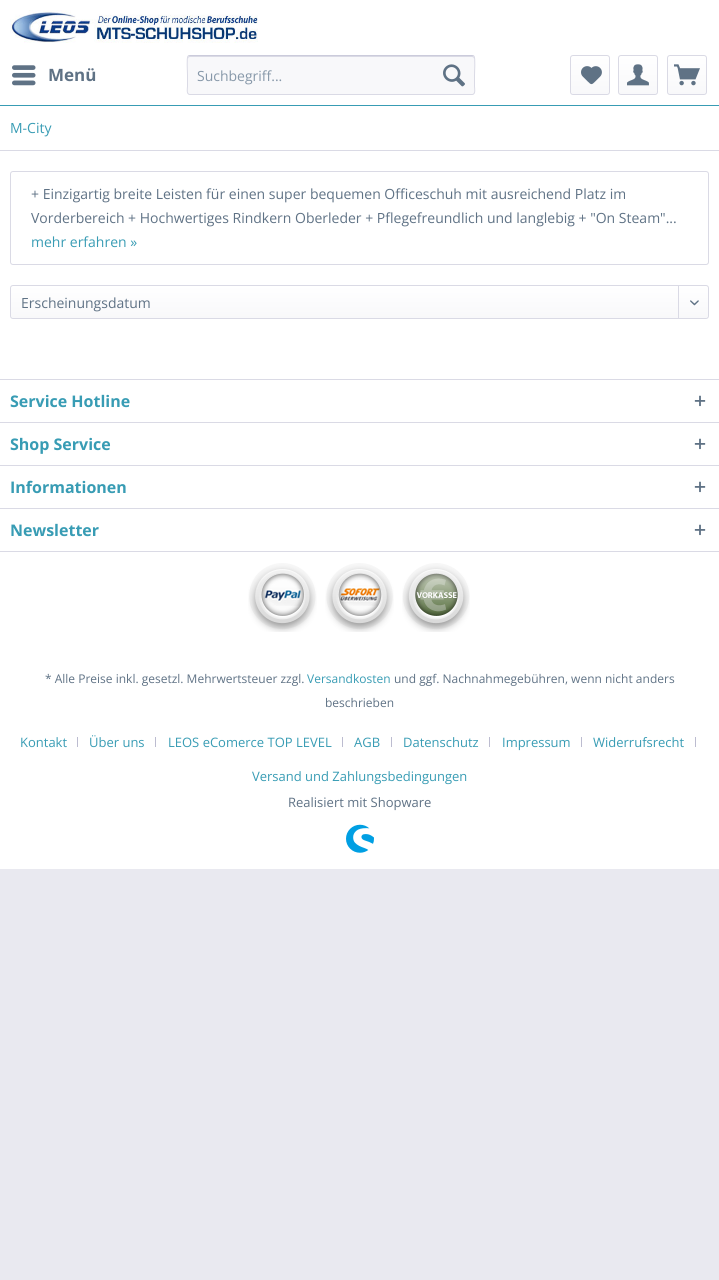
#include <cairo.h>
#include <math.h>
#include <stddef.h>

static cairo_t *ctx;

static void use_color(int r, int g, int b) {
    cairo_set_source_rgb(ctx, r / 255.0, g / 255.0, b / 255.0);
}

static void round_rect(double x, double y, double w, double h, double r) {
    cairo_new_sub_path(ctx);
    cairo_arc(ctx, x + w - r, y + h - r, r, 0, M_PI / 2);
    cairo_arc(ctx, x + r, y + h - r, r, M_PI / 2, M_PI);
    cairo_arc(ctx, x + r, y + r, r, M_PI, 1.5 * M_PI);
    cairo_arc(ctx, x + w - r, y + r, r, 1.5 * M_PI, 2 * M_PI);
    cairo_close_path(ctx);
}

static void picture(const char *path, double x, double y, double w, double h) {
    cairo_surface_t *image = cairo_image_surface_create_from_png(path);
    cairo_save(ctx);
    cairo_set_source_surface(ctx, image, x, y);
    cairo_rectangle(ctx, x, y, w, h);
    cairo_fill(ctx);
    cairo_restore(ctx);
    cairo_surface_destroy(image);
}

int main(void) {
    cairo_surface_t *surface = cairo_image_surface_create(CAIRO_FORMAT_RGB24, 719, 1280);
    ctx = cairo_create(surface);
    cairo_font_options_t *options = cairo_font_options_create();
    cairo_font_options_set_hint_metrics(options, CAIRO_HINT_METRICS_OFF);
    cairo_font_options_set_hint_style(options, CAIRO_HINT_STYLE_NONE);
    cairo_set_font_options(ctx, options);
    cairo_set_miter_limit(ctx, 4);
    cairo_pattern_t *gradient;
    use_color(233, 233, 240);
    cairo_paint(ctx);
    use_color(255, 255, 255);
    cairo_rectangle(ctx, 0, 0, 719, 105);
    cairo_fill(ctx);
    use_color(56, 156, 180);
    cairo_rectangle(ctx, 0, 105, 719, 1);
    cairo_fill(ctx);
    picture("img1.png", 10, 10, 248, 33);
    picture("img2.png", 12, 65, 24, 21);
    cairo_select_font_face(ctx, "Open Sans", CAIRO_FONT_SLANT_NORMAL, CAIRO_FONT_WEIGHT_BOLD);
    cairo_set_font_size(ctx, 17);
    use_color(95, 114, 133);
    cairo_move_to(ctx, 48, 81);
    cairo_show_text(ctx, "Menü");
    use_color(248, 248, 250);
    round_rect(187, 55, 288, 40, 3);
    cairo_fill(ctx);
    use_color(218, 218, 229);
    cairo_new_path(ctx);
    cairo_move_to(ctx, 190, 57);
    cairo_line_to(ctx, 472, 57);
    cairo_curve_to(ctx, 473, 57, 474, 58, 474, 59);
    cairo_curve_to(ctx, 474, 58, 474, 56, 472, 56);
    cairo_line_to(ctx, 190, 56);
    cairo_curve_to(ctx, 188, 56, 188, 58, 188, 59);
    cairo_curve_to(ctx, 188, 58, 189, 57, 190, 57);
    cairo_close_path(ctx);
    cairo_fill(ctx);
    cairo_new_path(ctx);
    cairo_move_to(ctx, 188, 56);
    cairo_line_to(ctx, 190, 55.5);
    cairo_line_to(ctx, 472, 55.5);
    cairo_line_to(ctx, 474, 56);
    use_color(203, 203, 219);
    cairo_set_line_width(ctx, 1);
    cairo_stroke(ctx);
    cairo_new_path(ctx);
    cairo_move_to(ctx, 474, 56);
    cairo_curve_to(ctx, 475.5, 58, 474.5, 72, 474.5, 75);
    cairo_line_to(ctx, 474.5, 86.5);
    cairo_curve_to(ctx, 474.5, 88, 476, 94.5, 472, 94.5);
    cairo_line_to(ctx, 190, 94.5);
    cairo_curve_to(ctx, 186, 94.5, 187.5, 88, 187.5, 86.5);
    cairo_line_to(ctx, 187.5, 75);
    cairo_curve_to(ctx, 187.5, 72, 186.5, 58, 188, 56);
    use_color(218, 218, 229);
    cairo_stroke(ctx);
    cairo_select_font_face(ctx, "Open Sans", CAIRO_FONT_SLANT_NORMAL, CAIRO_FONT_WEIGHT_NORMAL);
    cairo_set_font_size(ctx, 14);
    use_color(135, 152, 169);
    cairo_move_to(ctx, 197, 81);
    cairo_show_text(ctx, "Suchbegriff...");
    picture("img3.png", 443, 64, 22, 23);
    gradient = cairo_pattern_create_linear(590, 56, 590, 94);
    cairo_pattern_add_color_stop_rgba(gradient, 0, 1, 1, 1, 1);
    cairo_pattern_add_color_stop_rgba(gradient, 1, 0.973, 0.973, 0.98, 1);
    cairo_set_source(ctx, gradient);
    cairo_pattern_destroy(gradient);
    round_rect(571, 56, 38, 38, 2);
    cairo_fill(ctx);
    round_rect(570.5, 55.5, 39, 39, 2.5);
    use_color(218, 218, 229);
    cairo_stroke(ctx);
    picture("img4.png", 581, 66, 21, 19);
    gradient = cairo_pattern_create_linear(638, 56, 638, 94);
    cairo_pattern_add_color_stop_rgba(gradient, 0, 1, 1, 1, 1);
    cairo_pattern_add_color_stop_rgba(gradient, 1, 0.973, 0.973, 0.98, 1);
    cairo_set_source(ctx, gradient);
    cairo_pattern_destroy(gradient);
    round_rect(619, 56, 38, 38, 2);
    cairo_fill(ctx);
    round_rect(618.5, 55.5, 39, 39, 2.5);
    use_color(218, 218, 229);
    cairo_stroke(ctx);
    picture("img5.png", 627, 64, 22, 22);
    gradient = cairo_pattern_create_linear(687, 56, 687, 94);
    cairo_pattern_add_color_stop_rgba(gradient, 0, 1, 1, 1, 1);
    cairo_pattern_add_color_stop_rgba(gradient, 1, 0.973, 0.973, 0.98, 1);
    cairo_set_source(ctx, gradient);
    cairo_pattern_destroy(gradient);
    round_rect(668, 56, 38, 38, 2);
    cairo_fill(ctx);
    round_rect(667.5, 55.5, 39, 39, 2.5);
    use_color(218, 218, 229);
    cairo_stroke(ctx);
    picture("img6.png", 674, 64, 26, 22);
    use_color(255, 255, 255);
    cairo_rectangle(ctx, 0, 106, 719, 273);
    cairo_fill(ctx);
    use_color(218, 218, 229);
    cairo_rectangle(ctx, 0, 150, 719, 1);
    cairo_fill(ctx);
    use_color(56, 156, 180);
    cairo_move_to(ctx, 10, 133);
    cairo_show_text(ctx, "M-City");
    round_rect(10.5, 171.5, 698, 93, 2.5);
    use_color(218, 218, 229);
    cairo_stroke(ctx);
    use_color(95, 114, 133);
    cairo_move_to(ctx, 31, 199);
    cairo_show_text(ctx, "+ Einzigartig breite Leisten für einen super bequemen Officeschuh mit ausreichend Platz im");
    cairo_move_to(ctx, 31, 223);
    cairo_show_text(ctx, "Vorderbereich + Hochwertiges Rindkern Oberleder + Pflegefreundlich und langlebig + \"On Steam\"...");
    use_color(56, 156, 180);
    cairo_move_to(ctx, 31, 247);
    cairo_show_text(ctx, "mehr erfahren »");
    gradient = cairo_pattern_create_linear(360, 286, 360, 318);
    cairo_pattern_add_color_stop_rgba(gradient, 0, 1, 1, 1, 1);
    cairo_pattern_add_color_stop_rgba(gradient, 1, 0.973, 0.973, 0.98, 1);
    cairo_set_source(ctx, gradient);
    cairo_pattern_destroy(gradient);
    round_rect(11, 286, 697, 32, 2);
    cairo_fill(ctx);
    round_rect(10.5, 285.5, 698, 33, 2.5);
    use_color(218, 218, 229);
    cairo_stroke(ctx);
    use_color(95, 114, 133);
    cairo_move_to(ctx, 21, 308);
    cairo_show_text(ctx, "Erscheinungsdatum");
    use_color(218, 218, 229);
    cairo_rectangle(ctx, 678, 286, 1, 33);
    cairo_fill(ctx);
    picture("img7.png", 690, 300, 9, 6);
    use_color(255, 255, 255);
    cairo_rectangle(ctx, 0, 380, 719, 489);
    cairo_fill(ctx);
    use_color(218, 218, 229);
    cairo_rectangle(ctx, 0, 379, 719, 1);
    cairo_fill(ctx);
    cairo_select_font_face(ctx, "Open Sans", CAIRO_FONT_SLANT_NORMAL, CAIRO_FONT_WEIGHT_BOLD);
    cairo_set_font_size(ctx, 16);
    use_color(56, 156, 180);
    cairo_move_to(ctx, 10, 407);
    cairo_show_text(ctx, "Service Hotline");
    picture("img8.png", 694, 395, 12, 12);
    use_color(218, 218, 229);
    cairo_rectangle(ctx, 0, 422, 719, 1);
    cairo_fill(ctx);
    use_color(56, 156, 180);
    cairo_move_to(ctx, 10, 450);
    cairo_show_text(ctx, "Shop Service");
    picture("img8.png", 694, 438, 12, 12);
    use_color(218, 218, 229);
    cairo_rectangle(ctx, 0, 465, 719, 1);
    cairo_fill(ctx);
    use_color(56, 156, 180);
    cairo_move_to(ctx, 10, 493);
    cairo_show_text(ctx, "Informationen");
    picture("img8.png", 694, 481, 12, 12);
    use_color(218, 218, 229);
    cairo_rectangle(ctx, 0, 508, 719, 1);
    cairo_fill(ctx);
    cairo_rectangle(ctx, 0, 551, 719, 1);
    cairo_fill(ctx);
    use_color(56, 156, 180);
    cairo_move_to(ctx, 10, 536);
    cairo_show_text(ctx, "Newsletter");
    picture("img8.png", 694, 524, 12, 12);
    picture("img9.png", 248, 563, 69, 69);
    picture("img10.png", 325, 563, 69, 69);
    picture("img11.png", 402, 563, 68, 69);
    cairo_select_font_face(ctx, "Open Sans", CAIRO_FONT_SLANT_NORMAL, CAIRO_FONT_WEIGHT_NORMAL);
    cairo_set_font_size(ctx, 12);
    use_color(95, 114, 133);
    cairo_move_to(ctx, 45, 683);
    cairo_show_text(ctx, "* Alle Preise inkl. gesetzl. Mehrwertsteuer zzgl.");
    use_color(56, 156, 180);
    cairo_move_to(ctx, 307, 683);
    cairo_show_text(ctx, "Versandkosten");
    use_color(95, 114, 133);
    cairo_move_to(ctx, 394, 683);
    cairo_show_text(ctx, "und ggf. Nachnahmegebühren, wenn nicht anders");
    cairo_move_to(ctx, 325, 707);
    cairo_show_text(ctx, "beschrieben");
    cairo_set_font_size(ctx, 13);
    use_color(56, 156, 180);
    cairo_move_to(ctx, 20, 747);
    cairo_show_text(ctx, "Kontakt");
    use_color(188, 188, 208);
    cairo_rectangle(ctx, 77, 737, 1, 10);
    cairo_fill(ctx);
    use_color(56, 156, 180);
    cairo_move_to(ctx, 89, 747);
    cairo_show_text(ctx, "Über uns");
    use_color(188, 188, 208);
    cairo_rectangle(ctx, 155, 737, 1, 10);
    cairo_fill(ctx);
    use_color(56, 156, 180);
    cairo_move_to(ctx, 168, 747);
    cairo_show_text(ctx, "LEOS eComerce TOP LEVEL");
    use_color(188, 188, 208);
    cairo_rectangle(ctx, 342, 737, 1, 10);
    cairo_fill(ctx);
    use_color(56, 156, 180);
    cairo_move_to(ctx, 354, 747);
    cairo_show_text(ctx, "AGB");
    use_color(188, 188, 208);
    cairo_rectangle(ctx, 391, 737, 1, 10);
    cairo_fill(ctx);
    use_color(56, 156, 180);
    cairo_move_to(ctx, 403, 747);
    cairo_show_text(ctx, "Datenschutz");
    use_color(188, 188, 208);
    cairo_rectangle(ctx, 489, 737, 1, 10);
    cairo_fill(ctx);
    use_color(56, 156, 180);
    cairo_move_to(ctx, 502, 747);
    cairo_show_text(ctx, "Impressum");
    use_color(188, 188, 208);
    cairo_rectangle(ctx, 581, 737, 1, 10);
    cairo_fill(ctx);
    use_color(56, 156, 180);
    cairo_move_to(ctx, 593, 747);
    cairo_show_text(ctx, "Widerrufsrecht");
    use_color(188, 188, 208);
    cairo_rectangle(ctx, 695, 737, 1, 10);
    cairo_fill(ctx);
    use_color(56, 156, 180);
    cairo_move_to(ctx, 252, 781);
    cairo_show_text(ctx, "Versand und Zahlungsbedingungen");
    use_color(95, 114, 133);
    cairo_move_to(ctx, 288, 807);
    cairo_show_text(ctx, "Realisiert mit Shopware");
    picture("img12.png", 346, 824, 28, 29);
    cairo_surface_write_to_png(surface, "result.png");
    cairo_font_options_destroy(options);
    cairo_destroy(ctx);
    cairo_surface_destroy(surface);
    return 0;
}
